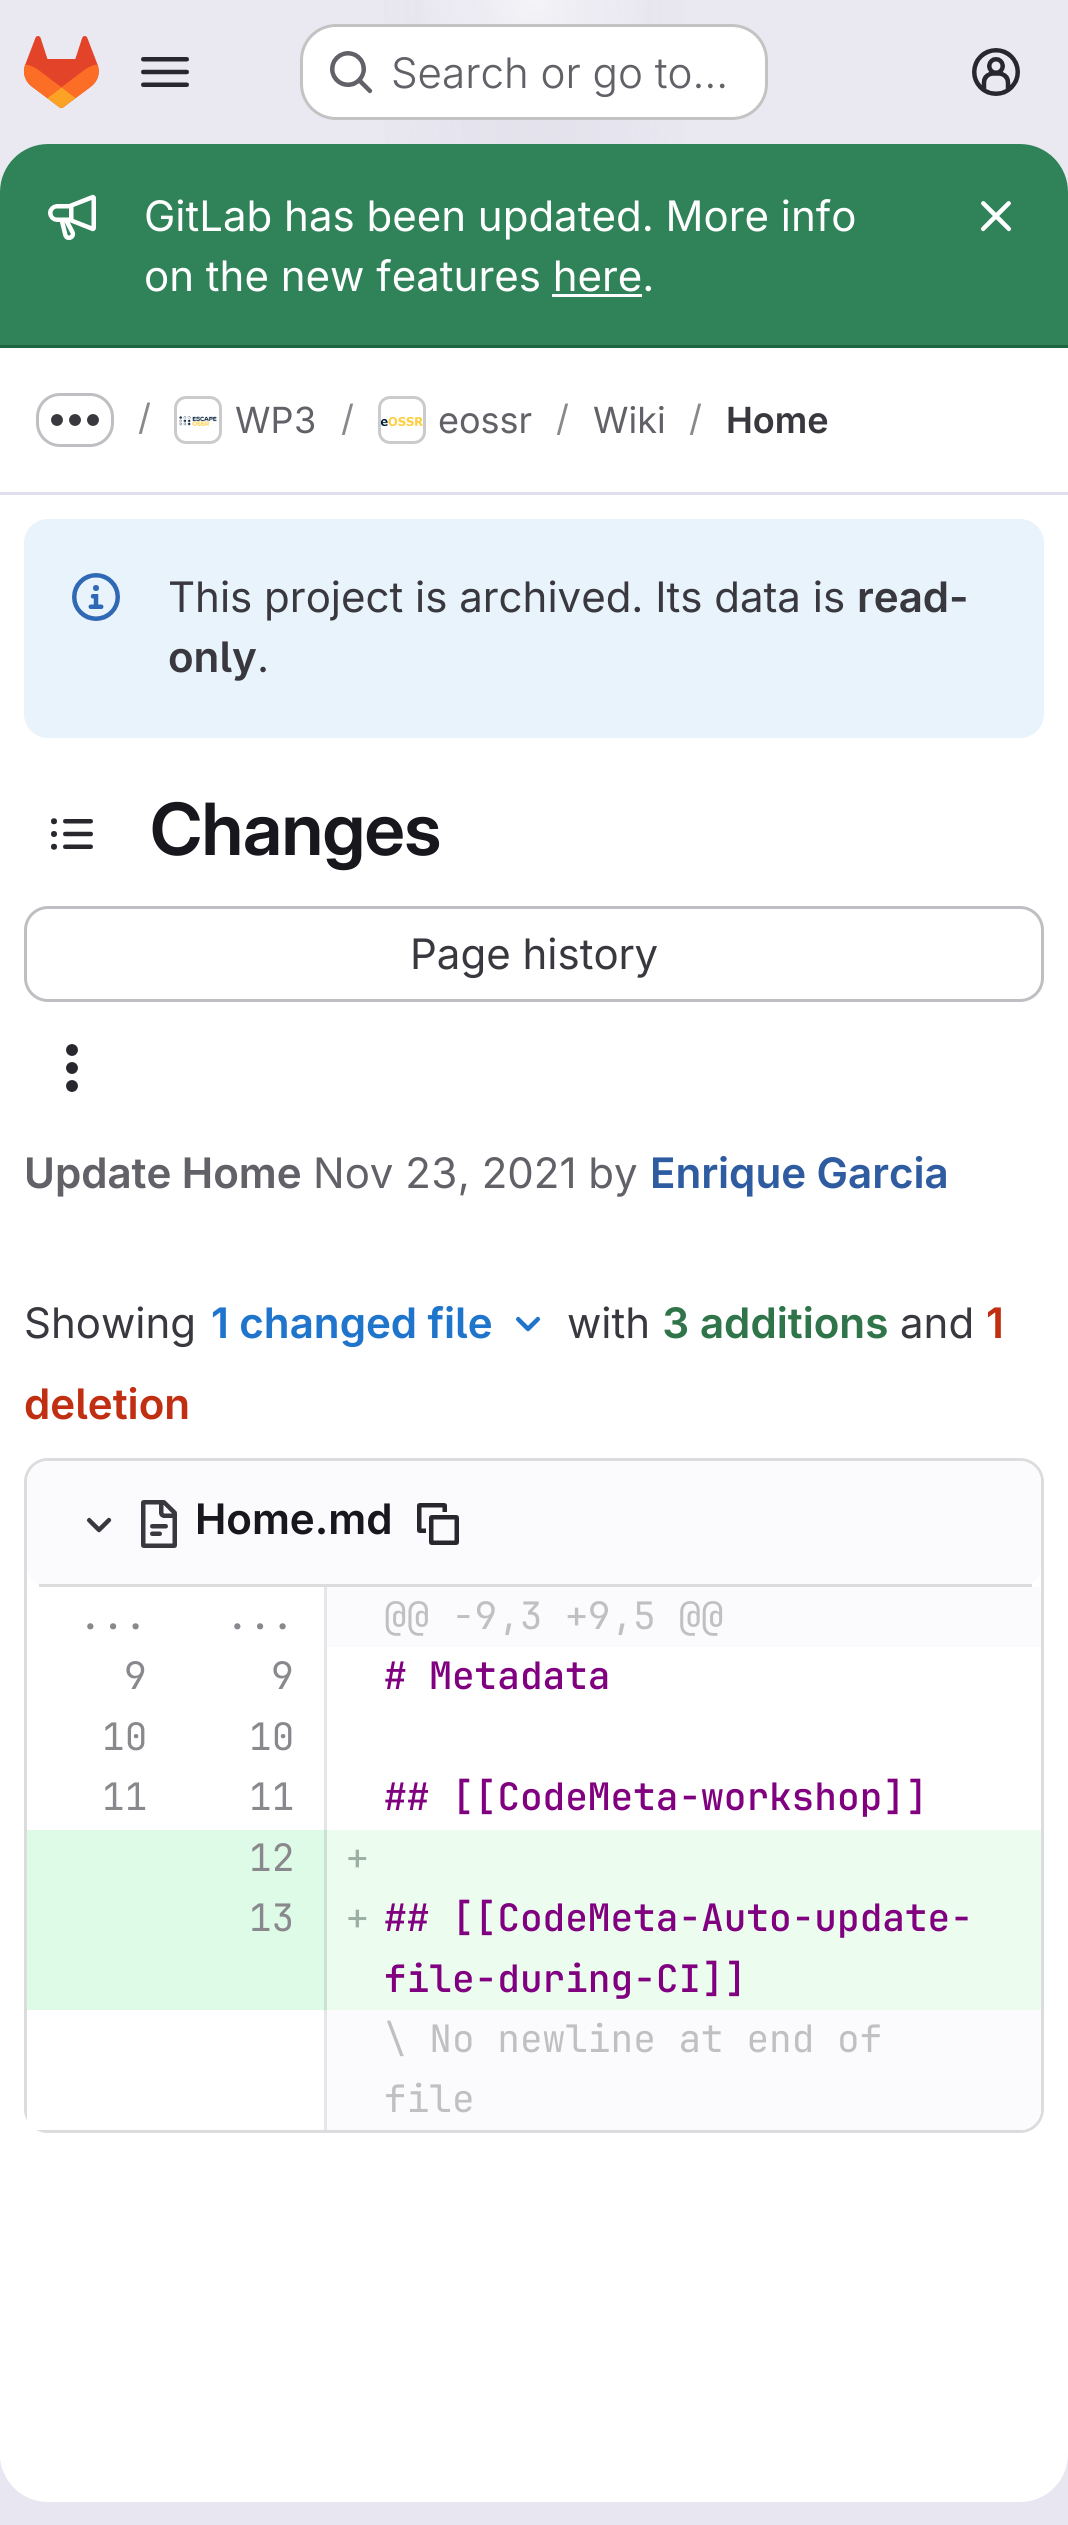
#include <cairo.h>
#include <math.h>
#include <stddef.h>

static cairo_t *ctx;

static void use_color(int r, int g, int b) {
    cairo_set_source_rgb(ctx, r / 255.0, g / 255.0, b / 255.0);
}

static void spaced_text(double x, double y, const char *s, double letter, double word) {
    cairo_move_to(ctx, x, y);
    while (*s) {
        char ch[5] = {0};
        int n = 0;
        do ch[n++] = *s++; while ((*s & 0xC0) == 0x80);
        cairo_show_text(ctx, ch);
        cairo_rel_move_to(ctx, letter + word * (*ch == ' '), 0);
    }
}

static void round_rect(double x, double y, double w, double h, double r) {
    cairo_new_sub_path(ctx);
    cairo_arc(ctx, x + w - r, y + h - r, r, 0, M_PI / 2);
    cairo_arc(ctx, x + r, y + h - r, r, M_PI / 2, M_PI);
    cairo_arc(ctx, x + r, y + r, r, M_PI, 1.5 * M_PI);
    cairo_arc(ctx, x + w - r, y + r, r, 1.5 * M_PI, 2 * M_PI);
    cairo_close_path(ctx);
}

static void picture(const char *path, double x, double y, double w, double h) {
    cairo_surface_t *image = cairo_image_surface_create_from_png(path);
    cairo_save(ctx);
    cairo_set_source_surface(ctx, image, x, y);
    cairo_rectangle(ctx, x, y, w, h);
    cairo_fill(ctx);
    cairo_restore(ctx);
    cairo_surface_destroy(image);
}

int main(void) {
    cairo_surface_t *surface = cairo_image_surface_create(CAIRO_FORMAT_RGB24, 1068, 2525);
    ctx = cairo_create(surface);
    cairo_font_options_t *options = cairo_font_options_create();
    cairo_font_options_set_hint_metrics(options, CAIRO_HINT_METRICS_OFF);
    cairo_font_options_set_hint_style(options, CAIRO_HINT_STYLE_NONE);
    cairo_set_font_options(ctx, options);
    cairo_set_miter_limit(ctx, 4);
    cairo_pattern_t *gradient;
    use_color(255, 255, 255);
    cairo_paint(ctx);
    gradient = cairo_pattern_create_linear(766, 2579, 302, -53);
    cairo_pattern_add_color_stop_rgba(gradient, 0, 0.91, 0.902, 0.941, 1);
    cairo_pattern_add_color_stop_rgba(gradient, 0.7, 0.918, 0.914, 0.949, 1);
    cairo_set_source(ctx, gradient);
    cairo_pattern_destroy(gradient);
    cairo_rectangle(ctx, 0, 0, 1068, 2525);
    cairo_fill(ctx);
    gradient = cairo_pattern_create_radial(0, 0, 0, 0, 0, 1);
    cairo_pattern_set_matrix(gradient, &(cairo_matrix_t){1.0 / 534, 0, 0, 1.0 / 2526, -1.0 * 534 / 534, -1.0 * 0 / 2526});
    cairo_pattern_add_color_stop_rgba(gradient, 0, 0.894, 0.886, 0.929, 1);
    cairo_pattern_add_color_stop_rgba(gradient, 0.39, 0.894, 0.886, 0.929, 0);
    cairo_set_source(ctx, gradient);
    cairo_pattern_destroy(gradient);
    cairo_rectangle(ctx, 384, 0, 300, 144);
    cairo_fill(ctx);
    gradient = cairo_pattern_create_radial(0, 0, 0, 0, 0, 1);
    cairo_pattern_set_matrix(gradient, &(cairo_matrix_t){1.0 / 534, 0, 0, 1.0 / 2526, -1.0 * 534 / 534, -1.0 * 0 / 2526});
    cairo_pattern_add_color_stop_rgba(gradient, 0, 0.894, 0.886, 0.925, 1);
    cairo_pattern_add_color_stop_rgba(gradient, 0.28, 0.894, 0.886, 0.925, 0);
    cairo_set_source(ctx, gradient);
    cairo_pattern_destroy(gradient);
    cairo_rectangle(ctx, 463, 0, 137, 144);
    cairo_fill(ctx);
    gradient = cairo_pattern_create_radial(534, 0, 0, 534, 0, 2582);
    cairo_pattern_add_color_stop_rgba(gradient, 0, 1, 1, 1, 0.6);
    cairo_pattern_add_color_stop_rgba(gradient, 0.05, 1, 1, 1, 0);
    cairo_set_source(ctx, gradient);
    cairo_pattern_destroy(gradient);
    cairo_rectangle(ctx, 424, 0, 220, 24);
    cairo_fill(ctx);
    picture("img1.png", 24, 36, 75, 72);
    picture("img2.png", 141, 57, 48, 30);
    use_color(255, 255, 255);
    round_rect(300, 24, 468, 96, 36);
    cairo_fill(ctx);
    round_rect(301.5, 25.5, 465, 93, 34.5);
    cairo_set_source_rgba(ctx, 0.02, 0.02, 0.024, 0.24);
    cairo_set_line_width(ctx, 3);
    cairo_stroke(ctx);
    picture("img3.png", 330, 51, 43, 43);
    cairo_select_font_face(ctx, "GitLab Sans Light", CAIRO_FONT_SLANT_NORMAL, CAIRO_FONT_WEIGHT_NORMAL);
    cairo_set_font_size(ctx, 42);
    use_color(98, 97, 104);
    cairo_move_to(ctx, 391, 88);
    cairo_show_text(ctx, "Search or go to…");
    picture("img4.png", 972, 48, 48, 48);
    use_color(255, 255, 255);
    round_rect(0, 144, 1068, 2358, 48);
    cairo_fill(ctx);
    use_color(48, 130, 88);
    cairo_new_path(ctx);
    cairo_move_to(ctx, 48, 144);
    cairo_line_to(ctx, 1020, 144);
    cairo_curve_to(ctx, 1046.5, 144, 1068, 165.5, 1068, 192);
    cairo_line_to(ctx, 1068, 348);
    cairo_line_to(ctx, 0, 348);
    cairo_line_to(ctx, 0, 192);
    cairo_curve_to(ctx, 0, 165.5, 21.5, 144, 48, 144);
    cairo_close_path(ctx);
    cairo_fill(ctx);
    use_color(27, 101, 63);
    cairo_rectangle(ctx, 0, 345, 1068, 3);
    cairo_fill(ctx);
    picture("img5.png", 48, 194, 48, 46);
    cairo_select_font_face(ctx, "GitLab Sans", CAIRO_FONT_SLANT_NORMAL, CAIRO_FONT_WEIGHT_NORMAL);
    use_color(255, 255, 255);
    cairo_move_to(ctx, 144, 231);
    cairo_show_text(ctx, "GitLab has been updated. More info");
    cairo_move_to(ctx, 144, 291);
    cairo_show_text(ctx, "on the new features here.");
    cairo_rectangle(ctx, 552, 294, 90, 3);
    cairo_fill(ctx);
    picture("img6.png", 980, 201, 32, 31);
    use_color(225, 223, 236);
    cairo_rectangle(ctx, 0, 492, 1068, 3);
    cairo_fill(ctx);
    round_rect(37.5, 394.5, 75, 51, 22.5);
    use_color(191, 191, 195);
    cairo_stroke(ctx);
    picture("img7.png", 51, 414, 48, 12);
    cairo_set_font_size(ctx, 36);
    use_color(137, 136, 141);
    cairo_move_to(ctx, 138, 430);
    cairo_show_text(ctx, "/");
    round_rect(175.5, 397.5, 45, 45, 10.5);
    use_color(220, 220, 222);
    cairo_stroke(ctx);
    picture("img8.png", 179, 416, 38, 10);
    round_rect(175.5, 397.5, 45, 45, 10.5);
    cairo_set_source_rgba(ctx, 0.02, 0.02, 0.024, 0.08);
    cairo_stroke(ctx);
    use_color(98, 97, 104);
    cairo_move_to(ctx, 235, 433);
    cairo_show_text(ctx, "WP3");
    use_color(137, 136, 141);
    cairo_move_to(ctx, 341, 431);
    cairo_show_text(ctx, "/");
    round_rect(379.5, 397.5, 45, 45, 10.5);
    use_color(220, 220, 222);
    cairo_stroke(ctx);
    picture("img9.png", 381, 417, 42, 9);
    round_rect(379.5, 397.5, 45, 45, 10.5);
    cairo_set_source_rgba(ctx, 0.02, 0.02, 0.024, 0.08);
    cairo_stroke(ctx);
    use_color(98, 97, 104);
    cairo_move_to(ctx, 438, 433);
    cairo_show_text(ctx, "eossr");
    use_color(137, 136, 141);
    cairo_move_to(ctx, 556, 431);
    cairo_show_text(ctx, "/");
    use_color(98, 97, 104);
    cairo_move_to(ctx, 593, 433);
    cairo_show_text(ctx, "Wiki");
    use_color(137, 136, 141);
    cairo_move_to(ctx, 689, 431);
    cairo_show_text(ctx, "/");
    cairo_select_font_face(ctx, "GitLab Sans SemiBold", CAIRO_FONT_SLANT_NORMAL, CAIRO_FONT_WEIGHT_NORMAL);
    use_color(58, 56, 63);
    cairo_move_to(ctx, 726, 433);
    cairo_show_text(ctx, "Home");
    use_color(233, 243, 252);
    round_rect(24, 519, 1020, 219, 24);
    cairo_fill(ctx);
    picture("img10.png", 72, 573, 48, 48);
    cairo_select_font_face(ctx, "GitLab Sans", CAIRO_FONT_SLANT_NORMAL, CAIRO_FONT_WEIGHT_NORMAL);
    cairo_set_font_size(ctx, 42);
    use_color(58, 56, 63);
    cairo_move_to(ctx, 168, 612);
    cairo_show_text(ctx, "This project is archived. Its data is");
    cairo_select_font_face(ctx, "GitLab Sans SemiBold", CAIRO_FONT_SLANT_NORMAL, CAIRO_FONT_WEIGHT_NORMAL);
    cairo_move_to(ctx, 857, 612);
    cairo_show_text(ctx, "read-");
    cairo_move_to(ctx, 168, 672);
    cairo_show_text(ctx, "only");
    cairo_select_font_face(ctx, "GitLab Sans", CAIRO_FONT_SLANT_NORMAL, CAIRO_FONT_WEIGHT_NORMAL);
    cairo_move_to(ctx, 257, 672);
    cairo_show_text(ctx, ".");
    cairo_save(ctx);
    round_rect(0, 144, 1068, 2358, 48);
    cairo_clip(ctx);
    use_color(255, 255, 255);
    cairo_rectangle(ctx, 0, 495, 3, 1976);
    cairo_fill(ctx);
    cairo_restore(ctx);
    picture("img11.png", 51, 818, 42, 32);
    cairo_select_font_face(ctx, "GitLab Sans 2 SemiBold", CAIRO_FONT_SLANT_NORMAL, CAIRO_FONT_WEIGHT_NORMAL);
    cairo_set_font_size(ctx, 72);
    use_color(24, 23, 29);
    spaced_text(150, 855, "Changes", -0.75, 0);
    round_rect(25.5, 907.5, 1017, 93, 22.5);
    use_color(191, 191, 195);
    cairo_stroke(ctx);
    cairo_select_font_face(ctx, "GitLab Sans", CAIRO_FONT_SLANT_NORMAL, CAIRO_FONT_WEIGHT_NORMAL);
    cairo_set_font_size(ctx, 42);
    use_color(58, 56, 63);
    cairo_move_to(ctx, 410, 969);
    cairo_show_text(ctx, "Page history");
    picture("img12.png", 66, 1044, 12, 48);
    cairo_select_font_face(ctx, "GitLab Sans SemiBold", CAIRO_FONT_SLANT_NORMAL, CAIRO_FONT_WEIGHT_NORMAL);
    use_color(98, 97, 104);
    cairo_move_to(ctx, 24, 1188);
    cairo_show_text(ctx, "Update Home");
    cairo_select_font_face(ctx, "GitLab Sans", CAIRO_FONT_SLANT_NORMAL, CAIRO_FONT_WEIGHT_NORMAL);
    cairo_move_to(ctx, 313, 1188);
    cairo_show_text(ctx, "Nov 23, 2021 by");
    cairo_select_font_face(ctx, "GitLab Sans SemiBold", CAIRO_FONT_SLANT_NORMAL, CAIRO_FONT_WEIGHT_NORMAL);
    use_color(47, 92, 160);
    cairo_move_to(ctx, 650, 1188);
    cairo_show_text(ctx, "Enrique Garcia");
    cairo_select_font_face(ctx, "GitLab Sans", CAIRO_FONT_SLANT_NORMAL, CAIRO_FONT_WEIGHT_NORMAL);
    use_color(58, 56, 63);
    cairo_move_to(ctx, 24, 1338);
    cairo_show_text(ctx, "Showing");
    cairo_select_font_face(ctx, "GitLab Sans SemiBold", CAIRO_FONT_SLANT_NORMAL, CAIRO_FONT_WEIGHT_NORMAL);
    use_color(31, 117, 203);
    cairo_move_to(ctx, 211, 1338);
    cairo_show_text(ctx, "1 changed file");
    picture("img13.png", 515, 1316, 26, 16);
    cairo_select_font_face(ctx, "GitLab Sans", CAIRO_FONT_SLANT_NORMAL, CAIRO_FONT_WEIGHT_NORMAL);
    use_color(58, 56, 63);
    cairo_move_to(ctx, 567, 1338);
    cairo_show_text(ctx, "with");
    cairo_select_font_face(ctx, "GitLab Sans SemiBold", CAIRO_FONT_SLANT_NORMAL, CAIRO_FONT_WEIGHT_NORMAL);
    use_color(47, 117, 73);
    cairo_move_to(ctx, 662, 1338);
    cairo_show_text(ctx, "3 additions");
    cairo_select_font_face(ctx, "GitLab Sans", CAIRO_FONT_SLANT_NORMAL, CAIRO_FONT_WEIGHT_NORMAL);
    use_color(58, 56, 63);
    cairo_move_to(ctx, 900, 1338);
    cairo_show_text(ctx, "and");
    cairo_select_font_face(ctx, "GitLab Sans SemiBold", CAIRO_FONT_SLANT_NORMAL, CAIRO_FONT_WEIGHT_NORMAL);
    use_color(192, 47, 18);
    cairo_move_to(ctx, 986, 1338);
    cairo_show_text(ctx, "1");
    cairo_move_to(ctx, 24, 1419);
    cairo_show_text(ctx, "deletion");
    round_rect(25.5, 1459.5, 1017, 672, 22.5);
    use_color(220, 220, 222);
    cairo_stroke(ctx);
    use_color(251, 250, 253);
    round_rect(27, 1461, 1014, 126, 21);
    cairo_fill(ctx);
    use_color(220, 220, 222);
    cairo_rectangle(ctx, 39, 1584, 993, 3);
    cairo_fill(ctx);
    picture("img14.png", 86, 1517, 26, 16);
    picture("img15.png", 141, 1500, 36, 48);
    use_color(24, 23, 29);
    cairo_move_to(ctx, 195, 1534);
    cairo_show_text(ctx, "Home.md");
    picture("img16.png", 417, 1503, 42, 42);
    use_color(255, 255, 255);
    cairo_new_path(ctx);
    cairo_move_to(ctx, 27, 1587);
    cairo_line_to(ctx, 1041, 1587);
    cairo_line_to(ctx, 1041, 2109);
    cairo_curve_to(ctx, 1041, 2120.5, 1031.5, 2130, 1020, 2130);
    cairo_line_to(ctx, 48, 2130);
    cairo_curve_to(ctx, 36.5, 2130, 27, 2120.5, 27, 2109);
    cairo_close_path(ctx);
    cairo_fill(ctx);
    cairo_select_font_face(ctx, "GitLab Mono", CAIRO_FONT_SLANT_NORMAL, CAIRO_FONT_WEIGHT_NORMAL);
    cairo_set_font_size(ctx, 37.75);
    use_color(137, 136, 141);
    cairo_move_to(ctx, 79, 1629);
    cairo_show_text(ctx, "...");
    use_color(230, 230, 230);
    cairo_rectangle(ctx, 324, 1587, 3, 243);
    cairo_fill(ctx);
    use_color(137, 136, 141);
    cairo_move_to(ctx, 226, 1629);
    cairo_show_text(ctx, "...");
    use_color(251, 250, 253);
    cairo_rectangle(ctx, 327, 1587, 714, 60);
    cairo_fill(ctx);
    use_color(192, 191, 194);
    cairo_move_to(ctx, 384, 1629);
    cairo_show_text(ctx, "@@ -9,3 +9,5 @@");
    use_color(137, 136, 141);
    cairo_move_to(ctx, 124, 1689);
    cairo_show_text(ctx, "9");
    cairo_move_to(ctx, 271, 1689);
    cairo_show_text(ctx, "9");
    cairo_select_font_face(ctx, "GitLab Mono SemiBold", CAIRO_FONT_SLANT_NORMAL, CAIRO_FONT_WEIGHT_NORMAL);
    use_color(128, 0, 128);
    cairo_move_to(ctx, 384, 1689);
    cairo_show_text(ctx, "# Metadata");
    cairo_select_font_face(ctx, "GitLab Mono", CAIRO_FONT_SLANT_NORMAL, CAIRO_FONT_WEIGHT_NORMAL);
    use_color(137, 136, 141);
    cairo_move_to(ctx, 102, 1750);
    cairo_show_text(ctx, "10");
    cairo_move_to(ctx, 249, 1750);
    cairo_show_text(ctx, "10");
    cairo_move_to(ctx, 102, 1810);
    cairo_show_text(ctx, "11");
    cairo_move_to(ctx, 249, 1810);
    cairo_show_text(ctx, "11");
    cairo_select_font_face(ctx, "GitLab Mono SemiBold", CAIRO_FONT_SLANT_NORMAL, CAIRO_FONT_WEIGHT_NORMAL);
    use_color(128, 0, 128);
    cairo_move_to(ctx, 384, 1810);
    cairo_show_text(ctx, "## [[CodeMeta-workshop]]");
    use_color(221, 251, 230);
    cairo_rectangle(ctx, 27, 1830, 297, 60);
    cairo_fill(ctx);
    use_color(199, 226, 207);
    cairo_rectangle(ctx, 324, 1830, 3, 180);
    cairo_fill(ctx);
    cairo_select_font_face(ctx, "GitLab Mono", CAIRO_FONT_SLANT_NORMAL, CAIRO_FONT_WEIGHT_NORMAL);
    use_color(137, 136, 141);
    cairo_move_to(ctx, 249, 1871);
    cairo_show_text(ctx, "12");
    use_color(236, 253, 240);
    cairo_rectangle(ctx, 327, 1830, 714, 180);
    cairo_fill(ctx);
    use_color(155, 176, 161);
    cairo_move_to(ctx, 346, 1871);
    cairo_show_text(ctx, "+");
    use_color(221, 251, 230);
    cairo_rectangle(ctx, 27, 1890, 297, 120);
    cairo_fill(ctx);
    use_color(155, 176, 161);
    cairo_move_to(ctx, 346, 1931);
    cairo_show_text(ctx, "+");
    cairo_select_font_face(ctx, "GitLab Mono SemiBold", CAIRO_FONT_SLANT_NORMAL, CAIRO_FONT_WEIGHT_NORMAL);
    use_color(128, 0, 128);
    cairo_move_to(ctx, 384, 1931);
    cairo_show_text(ctx, "## [[CodeMeta-Auto-update-");
    cairo_move_to(ctx, 384, 1992);
    cairo_show_text(ctx, "file-during-CI]]");
    cairo_select_font_face(ctx, "GitLab Mono", CAIRO_FONT_SLANT_NORMAL, CAIRO_FONT_WEIGHT_NORMAL);
    use_color(137, 136, 141);
    cairo_move_to(ctx, 249, 1931);
    cairo_show_text(ctx, "13");
    use_color(230, 230, 230);
    cairo_rectangle(ctx, 324, 2010, 3, 120);
    cairo_fill(ctx);
    use_color(251, 250, 253);
    cairo_new_path(ctx);
    cairo_move_to(ctx, 327, 2010);
    cairo_line_to(ctx, 1041, 2010);
    cairo_line_to(ctx, 1041, 2109);
    cairo_curve_to(ctx, 1041, 2120.5, 1031.5, 2130, 1020, 2130);
    cairo_line_to(ctx, 327, 2130);
    cairo_close_path(ctx);
    cairo_fill(ctx);
    use_color(192, 191, 194);
    cairo_move_to(ctx, 384, 2052);
    cairo_show_text(ctx, "\\ No newline at end of");
    cairo_move_to(ctx, 384, 2112);
    cairo_show_text(ctx, "file");
    use_color(255, 255, 255);
    cairo_rectangle(ctx, 27, 2112, 18, 18);
    cairo_fill(ctx);
    cairo_surface_write_to_png(surface, "result.png");
    cairo_font_options_destroy(options);
    cairo_destroy(ctx);
    cairo_surface_destroy(surface);
    return 0;
}
